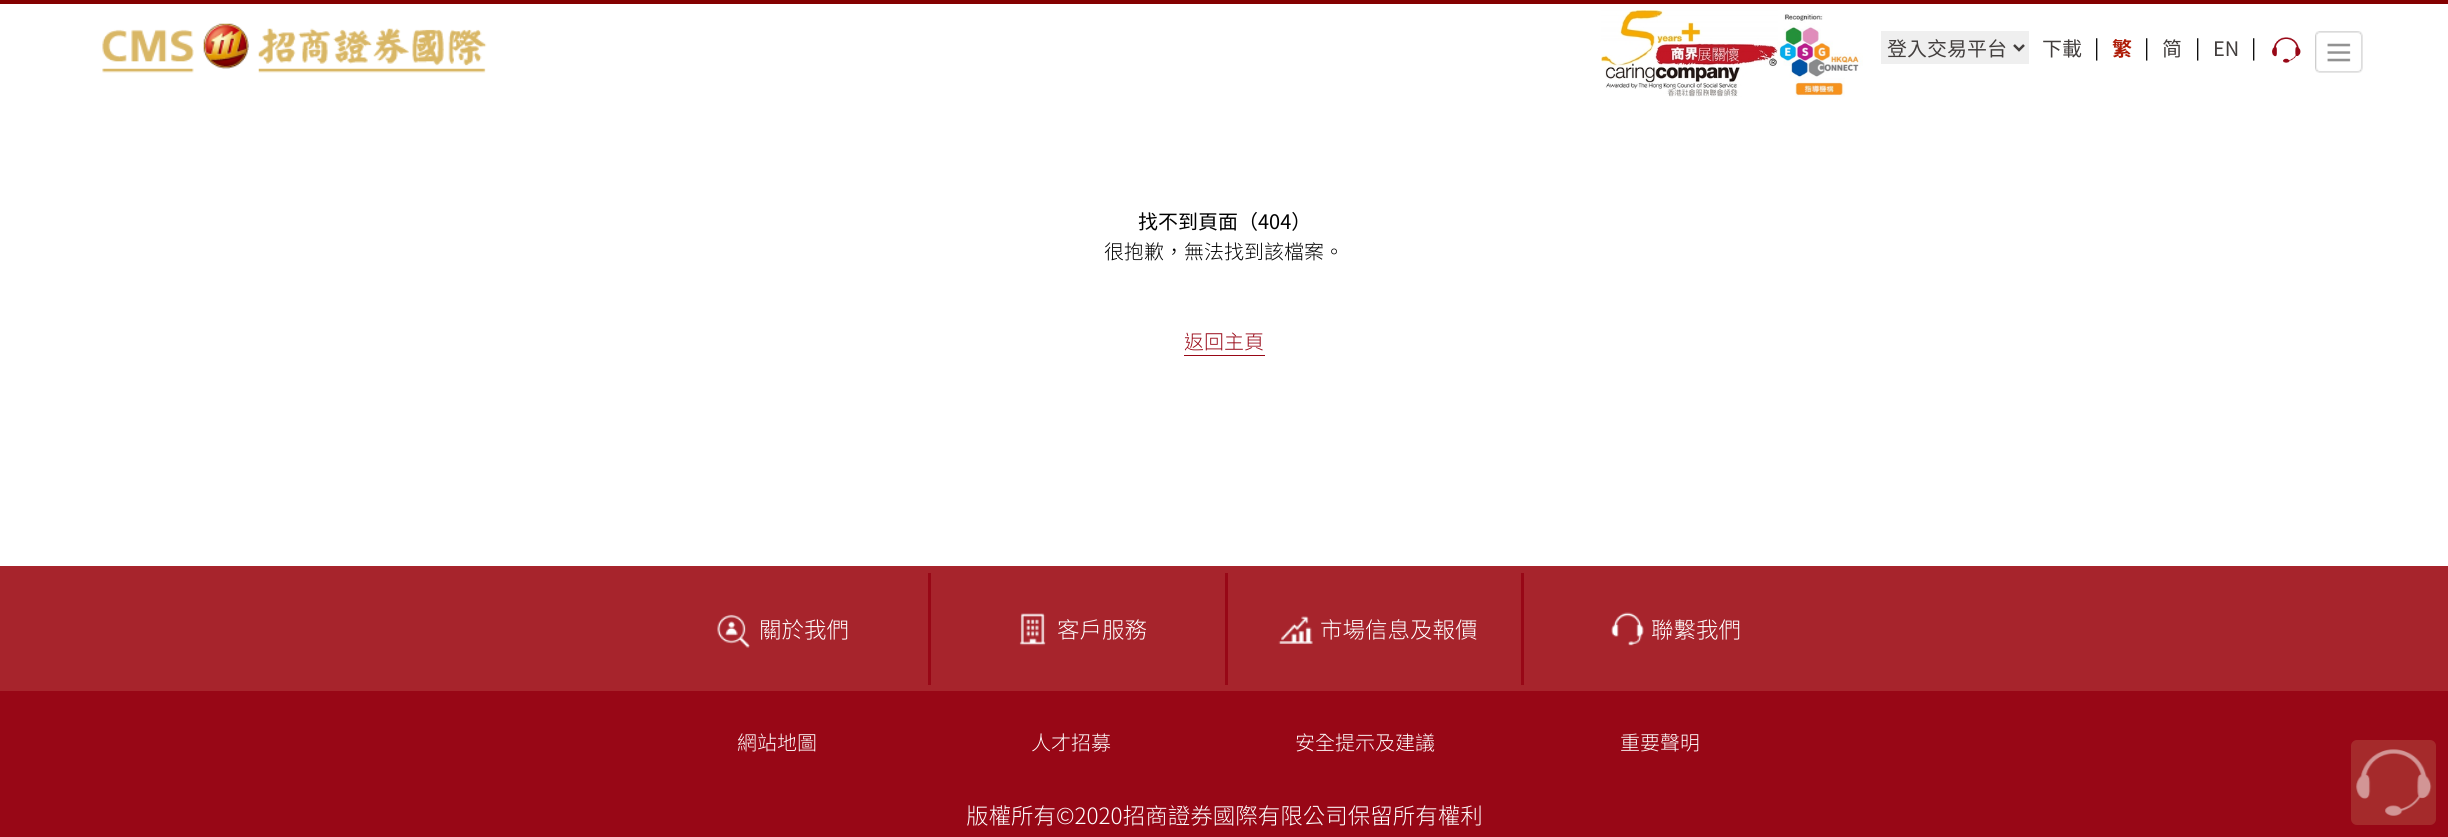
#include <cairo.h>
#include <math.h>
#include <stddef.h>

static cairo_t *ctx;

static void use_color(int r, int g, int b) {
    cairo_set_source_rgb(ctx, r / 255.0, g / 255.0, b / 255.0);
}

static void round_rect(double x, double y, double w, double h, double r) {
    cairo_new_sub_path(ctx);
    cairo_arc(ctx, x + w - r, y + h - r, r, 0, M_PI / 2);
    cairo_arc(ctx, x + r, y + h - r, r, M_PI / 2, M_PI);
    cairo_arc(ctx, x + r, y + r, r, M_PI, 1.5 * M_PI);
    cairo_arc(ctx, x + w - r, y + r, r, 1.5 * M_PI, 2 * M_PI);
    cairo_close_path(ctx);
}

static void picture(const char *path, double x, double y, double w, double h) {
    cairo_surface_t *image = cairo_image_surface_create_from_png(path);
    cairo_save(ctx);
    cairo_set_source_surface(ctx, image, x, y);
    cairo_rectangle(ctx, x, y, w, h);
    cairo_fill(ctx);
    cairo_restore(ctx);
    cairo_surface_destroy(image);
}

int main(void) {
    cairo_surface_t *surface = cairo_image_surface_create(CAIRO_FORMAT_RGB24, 2448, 837);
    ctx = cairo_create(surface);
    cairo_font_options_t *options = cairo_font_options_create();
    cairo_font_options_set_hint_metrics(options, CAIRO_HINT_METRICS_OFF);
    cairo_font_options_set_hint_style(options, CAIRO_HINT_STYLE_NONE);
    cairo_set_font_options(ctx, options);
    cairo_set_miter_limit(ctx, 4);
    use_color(255, 255, 255);
    cairo_paint(ctx);
    use_color(132, 0, 0);
    cairo_rectangle(ctx, 0, 0, 2448, 4);
    cairo_fill(ctx);
    picture("img1.png", 102, 23, 385, 50);
    picture("img2.png", 1601, 10, 262, 87);
    use_color(239, 239, 239);
    cairo_rectangle(ctx, 1881, 31, 148, 33);
    cairo_fill(ctx);
    cairo_new_path(ctx);
    cairo_move_to(ctx, 2014, 45);
    cairo_line_to(ctx, 2019, 50);
    cairo_line_to(ctx, 2024, 45);
    use_color(66, 62, 61);
    cairo_set_line_width(ctx, 2.5);
    cairo_stroke(ctx);
    cairo_select_font_face(ctx, "Noto Sans TC", CAIRO_FONT_SLANT_NORMAL, CAIRO_FONT_WEIGHT_NORMAL);
    cairo_set_font_size(ctx, 20);
    cairo_move_to(ctx, 1887, 56);
    cairo_show_text(ctx, "登入交易平台");
    cairo_move_to(ctx, 2042, 56);
    cairo_show_text(ctx, "下載");
    use_color(0, 0, 0);
    cairo_move_to(ctx, 2094, 55);
    cairo_show_text(ctx, "|");
    cairo_select_font_face(ctx, "Noto Sans TC", CAIRO_FONT_SLANT_NORMAL, CAIRO_FONT_WEIGHT_BOLD);
    use_color(174, 27, 7);
    cairo_move_to(ctx, 2112, 56);
    cairo_show_text(ctx, "繁");
    cairo_select_font_face(ctx, "Noto Sans TC", CAIRO_FONT_SLANT_NORMAL, CAIRO_FONT_WEIGHT_NORMAL);
    use_color(0, 0, 0);
    cairo_move_to(ctx, 2144, 55);
    cairo_show_text(ctx, "|");
    cairo_select_font_face(ctx, "Noto Sans SC", CAIRO_FONT_SLANT_NORMAL, CAIRO_FONT_WEIGHT_NORMAL);
    use_color(66, 62, 61);
    cairo_move_to(ctx, 2162, 56);
    cairo_show_text(ctx, "简");
    cairo_select_font_face(ctx, "Noto Sans TC", CAIRO_FONT_SLANT_NORMAL, CAIRO_FONT_WEIGHT_NORMAL);
    use_color(0, 0, 0);
    cairo_move_to(ctx, 2195, 55);
    cairo_show_text(ctx, "|");
    use_color(66, 62, 61);
    cairo_move_to(ctx, 2213, 56);
    cairo_show_text(ctx, "EN");
    use_color(0, 0, 0);
    cairo_move_to(ctx, 2251, 55);
    cairo_show_text(ctx, "|");
    picture("img3.png", 2272, 37, 29, 26);
    picture("img4.png", 2315, 31, 48, 42);
    cairo_move_to(ctx, 1138, 229);
    cairo_show_text(ctx, "找不到頁面（404）");
    cairo_select_font_face(ctx, "Noto Sans TC Light", CAIRO_FONT_SLANT_NORMAL, CAIRO_FONT_WEIGHT_NORMAL);
    cairo_move_to(ctx, 1104, 259);
    cairo_show_text(ctx, "很抱歉，無法找到該檔案。");
    use_color(152, 7, 22);
    cairo_move_to(ctx, 1184, 349);
    cairo_show_text(ctx, "返回主頁");
    cairo_rectangle(ctx, 1184, 355, 81, 1);
    cairo_fill(ctx);
    cairo_rectangle(ctx, 0, 691, 2448, 146);
    cairo_fill(ctx);
    use_color(167, 36, 44);
    cairo_rectangle(ctx, 0, 566, 2448, 125);
    cairo_fill(ctx);
    picture("img5.png", 717, 614, 33, 34);
    cairo_set_font_size(ctx, 22.5);
    use_color(255, 255, 255);
    cairo_move_to(ctx, 759, 638);
    cairo_show_text(ctx, "關於我們");
    use_color(152, 7, 22);
    cairo_rectangle(ctx, 928, 573, 3, 112);
    cairo_fill(ctx);
    picture("img6.png", 1019, 613, 27, 33);
    use_color(255, 255, 255);
    cairo_move_to(ctx, 1057, 638);
    cairo_show_text(ctx, "客戶服務");
    use_color(152, 7, 22);
    cairo_rectangle(ctx, 1225, 573, 3, 112);
    cairo_fill(ctx);
    picture("img7.png", 1278, 616, 35, 28);
    use_color(255, 255, 255);
    cairo_move_to(ctx, 1320, 638);
    cairo_show_text(ctx, "市場信息及報價");
    use_color(152, 7, 22);
    cairo_rectangle(ctx, 1521, 573, 3, 112);
    cairo_fill(ctx);
    picture("img8.png", 1611, 612, 33, 34);
    use_color(255, 255, 255);
    cairo_move_to(ctx, 1651, 638);
    cairo_show_text(ctx, "聯繫我們");
    cairo_set_font_size(ctx, 20);
    cairo_move_to(ctx, 737, 750);
    cairo_show_text(ctx, "網站地圖");
    cairo_move_to(ctx, 1031, 750);
    cairo_show_text(ctx, "人才招募");
    cairo_move_to(ctx, 1295, 750);
    cairo_show_text(ctx, "安全提示及建議");
    cairo_move_to(ctx, 1620, 750);
    cairo_show_text(ctx, "重要聲明");
    cairo_set_font_size(ctx, 22.5);
    cairo_move_to(ctx, 966, 824);
    cairo_show_text(ctx, "版權所有©2020招商證券國際有限公司保留所有權利");
    use_color(165, 42, 43);
    round_rect(2351, 740, 85, 85, 6);
    cairo_fill(ctx);
    picture("img9.png", 2356, 749, 76, 67);
    cairo_surface_write_to_png(surface, "result.png");
    cairo_font_options_destroy(options);
    cairo_destroy(ctx);
    cairo_surface_destroy(surface);
    return 0;
}
